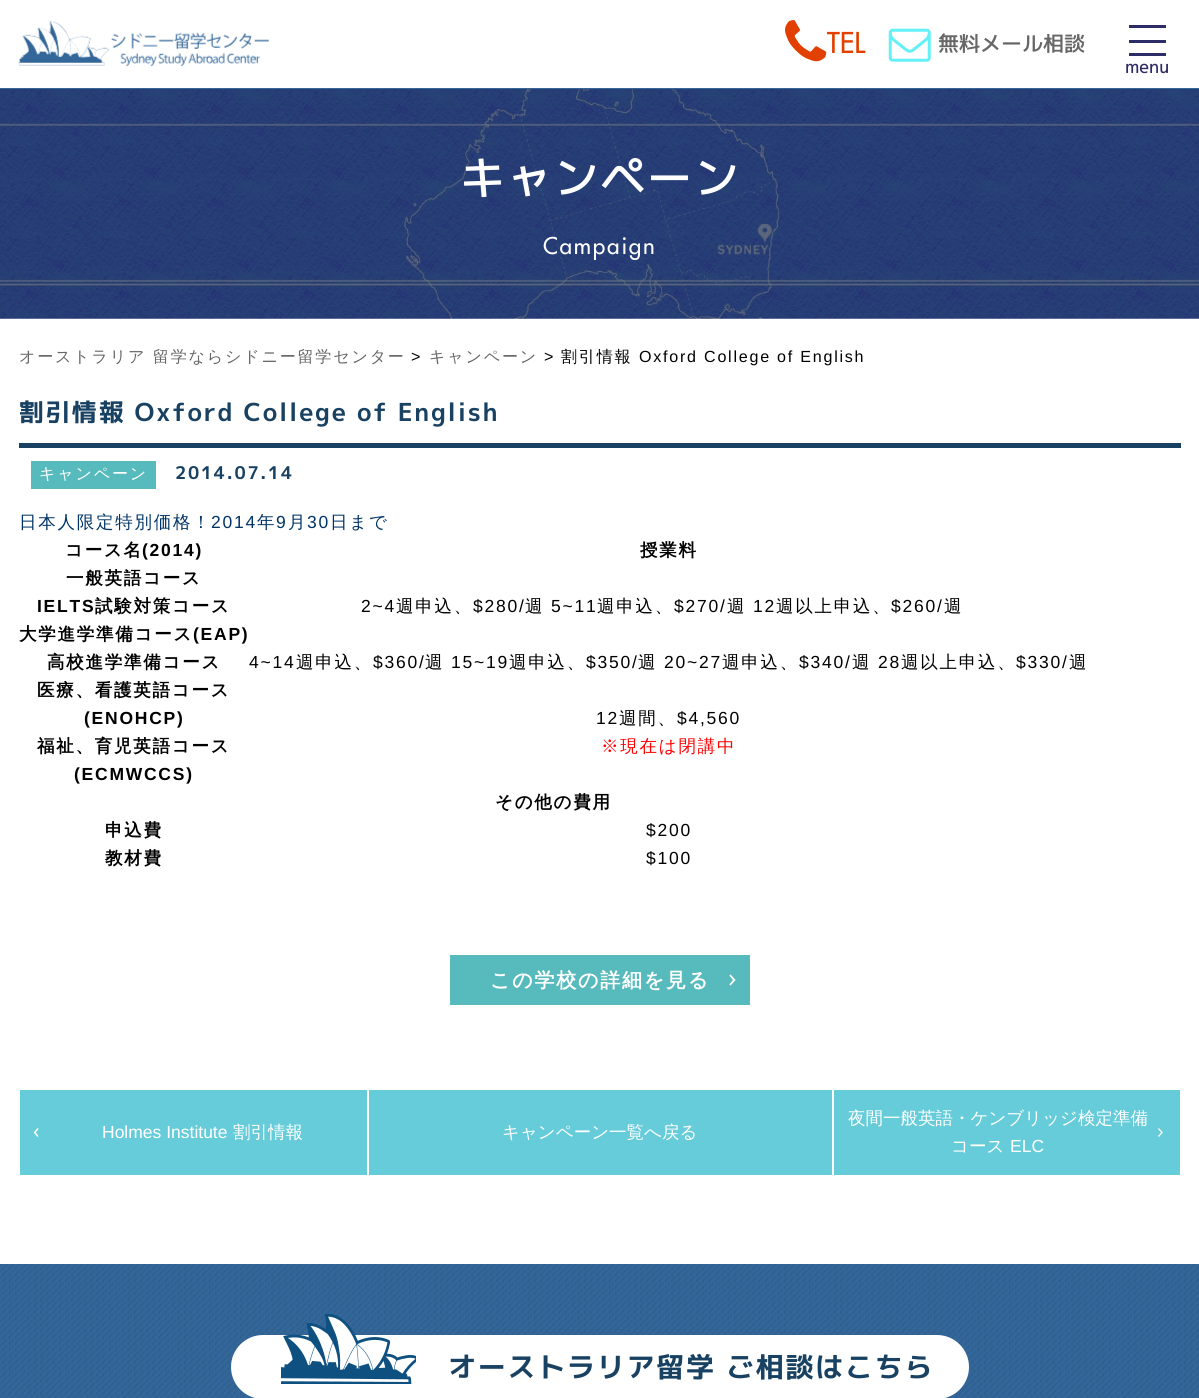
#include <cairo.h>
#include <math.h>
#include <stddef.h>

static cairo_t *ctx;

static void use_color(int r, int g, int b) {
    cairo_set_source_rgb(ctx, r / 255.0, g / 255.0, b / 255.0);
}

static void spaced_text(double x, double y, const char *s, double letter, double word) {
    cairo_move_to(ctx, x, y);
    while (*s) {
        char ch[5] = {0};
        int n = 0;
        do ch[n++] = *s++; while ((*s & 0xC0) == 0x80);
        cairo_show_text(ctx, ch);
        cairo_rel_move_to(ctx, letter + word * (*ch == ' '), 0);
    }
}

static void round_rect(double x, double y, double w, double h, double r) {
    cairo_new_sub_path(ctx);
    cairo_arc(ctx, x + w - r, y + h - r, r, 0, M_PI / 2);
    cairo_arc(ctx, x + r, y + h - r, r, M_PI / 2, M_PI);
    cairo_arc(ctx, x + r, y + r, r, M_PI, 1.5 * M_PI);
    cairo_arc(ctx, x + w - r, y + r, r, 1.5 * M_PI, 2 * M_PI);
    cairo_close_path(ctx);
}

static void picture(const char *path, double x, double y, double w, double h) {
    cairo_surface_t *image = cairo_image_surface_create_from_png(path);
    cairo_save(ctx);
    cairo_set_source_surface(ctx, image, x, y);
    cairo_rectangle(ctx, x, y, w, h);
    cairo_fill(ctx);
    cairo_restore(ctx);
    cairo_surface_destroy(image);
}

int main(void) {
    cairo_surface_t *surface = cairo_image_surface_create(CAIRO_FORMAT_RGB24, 1199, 1398);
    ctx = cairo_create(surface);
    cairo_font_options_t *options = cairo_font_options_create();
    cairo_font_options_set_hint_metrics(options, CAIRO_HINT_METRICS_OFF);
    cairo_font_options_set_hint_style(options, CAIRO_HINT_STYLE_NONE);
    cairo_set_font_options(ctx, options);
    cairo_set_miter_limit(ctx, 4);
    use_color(255, 255, 255);
    cairo_paint(ctx);
    use_color(51, 102, 153);
    cairo_rectangle(ctx, 0, 88, 1199, 1);
    cairo_fill(ctx);
    picture("img1.png", 18, 20, 251, 47);
    picture("img2.png", 785, 20, 42, 42);
    cairo_select_font_face(ctx, "Futura Medium", CAIRO_FONT_SLANT_NORMAL, CAIRO_FONT_WEIGHT_NORMAL);
    cairo_set_font_size(ctx, 28);
    use_color(225, 64, 0);
    cairo_move_to(ctx, 827, 53);
    cairo_show_text(ctx, "TEL");
    picture("img3.png", 888, 28, 43, 34);
    cairo_select_font_face(ctx, "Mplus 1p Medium", CAIRO_FONT_SLANT_NORMAL, CAIRO_FONT_WEIGHT_NORMAL);
    cairo_set_font_size(ctx, 21);
    use_color(102, 102, 102);
    cairo_move_to(ctx, 938, 51);
    cairo_show_text(ctx, "無料メール相談");
    use_color(46, 44, 102);
    cairo_rectangle(ctx, 1129, 25, 37, 3);
    cairo_fill(ctx);
    cairo_rectangle(ctx, 1129, 40, 37, 3);
    cairo_fill(ctx);
    cairo_rectangle(ctx, 1129, 53, 37, 3);
    cairo_fill(ctx);
    cairo_set_font_size(ctx, 17.5);
    cairo_move_to(ctx, 1125, 73);
    cairo_show_text(ctx, "menu");
    picture("img4.png", 0, 89, 1199, 230);
    cairo_set_font_size(ctx, 45);
    use_color(255, 255, 255);
    spaced_text(460, 194, "キャンペーン", 1.75, 0);
    cairo_select_font_face(ctx, "Futura Medium", CAIRO_FONT_SLANT_NORMAL, CAIRO_FONT_WEIGHT_NORMAL);
    cairo_set_font_size(ctx, 22.5);
    spaced_text(543, 254, "Campaign", 1.75, 0);
    cairo_select_font_face(ctx, "WenQuanYi Zen Hei Medium", CAIRO_FONT_SLANT_NORMAL, CAIRO_FONT_WEIGHT_NORMAL);
    cairo_set_font_size(ctx, 16.1);
    use_color(102, 102, 102);
    spaced_text(19, 362, "オーストラリア 留学ならシドニー留学センター", 1.75, 0);
    cairo_select_font_face(ctx, "Liberation Sans", CAIRO_FONT_SLANT_NORMAL, CAIRO_FONT_WEIGHT_NORMAL);
    use_color(0, 0, 0);
    spaced_text(411, 362, ">", 1.75, 0);
    cairo_select_font_face(ctx, "WenQuanYi Zen Hei Medium", CAIRO_FONT_SLANT_NORMAL, CAIRO_FONT_WEIGHT_NORMAL);
    use_color(102, 102, 102);
    spaced_text(429, 362, "キャンペーン", 1.75, 0);
    cairo_select_font_face(ctx, "Liberation Sans", CAIRO_FONT_SLANT_NORMAL, CAIRO_FONT_WEIGHT_NORMAL);
    use_color(0, 0, 0);
    spaced_text(544, 362, ">", 1.75, 0);
    cairo_select_font_face(ctx, "WenQuanYi Zen Hei Medium", CAIRO_FONT_SLANT_NORMAL, CAIRO_FONT_WEIGHT_NORMAL);
    spaced_text(561, 362, "割引情報", 1.75, 0);
    cairo_select_font_face(ctx, "Liberation Sans", CAIRO_FONT_SLANT_NORMAL, CAIRO_FONT_WEIGHT_NORMAL);
    spaced_text(639, 362, "Oxford College of English", 1.75, 0);
    use_color(24, 65, 98);
    cairo_rectangle(ctx, 19, 443, 1162, 5);
    cairo_fill(ctx);
    cairo_select_font_face(ctx, "Mplus 1p", CAIRO_FONT_SLANT_NORMAL, CAIRO_FONT_WEIGHT_BOLD);
    cairo_set_font_size(ctx, 24.8);
    spaced_text(19, 421, "割引情報 Oxford College of English", 1.75, 0);
    use_color(87, 186, 188);
    cairo_rectangle(ctx, 31, 461, 125, 28);
    cairo_fill(ctx);
    cairo_select_font_face(ctx, "WenQuanYi Zen Hei Medium", CAIRO_FONT_SLANT_NORMAL, CAIRO_FONT_WEIGHT_NORMAL);
    cairo_set_font_size(ctx, 16.1);
    use_color(255, 255, 255);
    spaced_text(39, 479, "キャンペーン", 1.75, 0);
    cairo_select_font_face(ctx, "Mplus 1p", CAIRO_FONT_SLANT_NORMAL, CAIRO_FONT_WEIGHT_BOLD);
    cairo_set_font_size(ctx, 17.5);
    use_color(24, 65, 98);
    spaced_text(175, 479, "2014.07.14", 1.75, 0);
    cairo_select_font_face(ctx, "WenQuanYi Zen Hei Medium", CAIRO_FONT_SLANT_NORMAL, CAIRO_FONT_WEIGHT_NORMAL);
    use_color(0, 51, 102);
    spaced_text(19, 528, "日本人限定特別価格！", 1.75, 0);
    cairo_select_font_face(ctx, "Liberation Sans", CAIRO_FONT_SLANT_NORMAL, CAIRO_FONT_WEIGHT_NORMAL);
    spaced_text(211, 528, "2014", 1.75, 0);
    cairo_select_font_face(ctx, "WenQuanYi Zen Hei Medium", CAIRO_FONT_SLANT_NORMAL, CAIRO_FONT_WEIGHT_NORMAL);
    spaced_text(257, 528, "年", 1.75, 0);
    cairo_select_font_face(ctx, "Liberation Sans", CAIRO_FONT_SLANT_NORMAL, CAIRO_FONT_WEIGHT_NORMAL);
    spaced_text(276, 528, "9", 1.75, 0);
    cairo_select_font_face(ctx, "WenQuanYi Zen Hei Medium", CAIRO_FONT_SLANT_NORMAL, CAIRO_FONT_WEIGHT_NORMAL);
    spaced_text(288, 528, "月", 1.75, 0);
    cairo_select_font_face(ctx, "Liberation Sans", CAIRO_FONT_SLANT_NORMAL, CAIRO_FONT_WEIGHT_NORMAL);
    spaced_text(307, 528, "30", 1.75, 0);
    cairo_select_font_face(ctx, "WenQuanYi Zen Hei Medium", CAIRO_FONT_SLANT_NORMAL, CAIRO_FONT_WEIGHT_NORMAL);
    spaced_text(330, 528, "日まで", 1.75, 0);
    cairo_select_font_face(ctx, "WenQuanYi Zen Hei", CAIRO_FONT_SLANT_NORMAL, CAIRO_FONT_WEIGHT_BOLD);
    use_color(0, 0, 0);
    spaced_text(65, 556, "コース名", 1.75, 0);
    cairo_select_font_face(ctx, "Liberation Sans", CAIRO_FONT_SLANT_NORMAL, CAIRO_FONT_WEIGHT_BOLD);
    spaced_text(142, 556, "(2014)", 1.75, 0);
    cairo_select_font_face(ctx, "WenQuanYi Zen Hei", CAIRO_FONT_SLANT_NORMAL, CAIRO_FONT_WEIGHT_BOLD);
    spaced_text(640, 556, "授業料", 1.75, 0);
    spaced_text(66, 584, "一般英語コース", 1.75, 0);
    cairo_select_font_face(ctx, "Liberation Sans", CAIRO_FONT_SLANT_NORMAL, CAIRO_FONT_WEIGHT_NORMAL);
    spaced_text(361, 612, "2~4", 1.75, 0);
    cairo_select_font_face(ctx, "WenQuanYi Zen Hei Medium", CAIRO_FONT_SLANT_NORMAL, CAIRO_FONT_WEIGHT_NORMAL);
    spaced_text(396, 612, "週申込、", 1.75, 0);
    cairo_select_font_face(ctx, "Liberation Sans", CAIRO_FONT_SLANT_NORMAL, CAIRO_FONT_WEIGHT_NORMAL);
    spaced_text(473, 612, "$280/", 1.75, 0);
    cairo_select_font_face(ctx, "WenQuanYi Zen Hei Medium", CAIRO_FONT_SLANT_NORMAL, CAIRO_FONT_WEIGHT_NORMAL);
    spaced_text(525, 612, "週", 1.75, 0);
    cairo_select_font_face(ctx, "Liberation Sans", CAIRO_FONT_SLANT_NORMAL, CAIRO_FONT_WEIGHT_NORMAL);
    spaced_text(551, 612, "5~11", 1.75, 0);
    cairo_select_font_face(ctx, "WenQuanYi Zen Hei Medium", CAIRO_FONT_SLANT_NORMAL, CAIRO_FONT_WEIGHT_NORMAL);
    spaced_text(597, 612, "週申込、", 1.75, 0);
    cairo_select_font_face(ctx, "Liberation Sans", CAIRO_FONT_SLANT_NORMAL, CAIRO_FONT_WEIGHT_NORMAL);
    spaced_text(674, 612, "$270/", 1.75, 0);
    cairo_select_font_face(ctx, "WenQuanYi Zen Hei Medium", CAIRO_FONT_SLANT_NORMAL, CAIRO_FONT_WEIGHT_NORMAL);
    spaced_text(727, 612, "週", 1.75, 0);
    cairo_select_font_face(ctx, "Liberation Sans", CAIRO_FONT_SLANT_NORMAL, CAIRO_FONT_WEIGHT_NORMAL);
    spaced_text(753, 612, "12", 1.75, 0);
    cairo_select_font_face(ctx, "WenQuanYi Zen Hei Medium", CAIRO_FONT_SLANT_NORMAL, CAIRO_FONT_WEIGHT_NORMAL);
    spaced_text(776, 612, "週以上申込、", 1.75, 0);
    cairo_select_font_face(ctx, "Liberation Sans", CAIRO_FONT_SLANT_NORMAL, CAIRO_FONT_WEIGHT_NORMAL);
    spaced_text(891, 612, "$260/", 1.75, 0);
    cairo_select_font_face(ctx, "WenQuanYi Zen Hei Medium", CAIRO_FONT_SLANT_NORMAL, CAIRO_FONT_WEIGHT_NORMAL);
    spaced_text(944, 612, "週", 1.75, 0);
    cairo_select_font_face(ctx, "Liberation Sans", CAIRO_FONT_SLANT_NORMAL, CAIRO_FONT_WEIGHT_BOLD);
    spaced_text(37, 612, "IELTS", 1.75, 0);
    cairo_select_font_face(ctx, "WenQuanYi Zen Hei", CAIRO_FONT_SLANT_NORMAL, CAIRO_FONT_WEIGHT_BOLD);
    spaced_text(95, 612, "試験対策コース", 1.75, 0);
    spaced_text(19, 640, "大学進学準備コース", 1.75, 0);
    cairo_select_font_face(ctx, "Liberation Sans", CAIRO_FONT_SLANT_NORMAL, CAIRO_FONT_WEIGHT_BOLD);
    spaced_text(193, 640, "(EAP)", 1.75, 0);
    cairo_select_font_face(ctx, "WenQuanYi Zen Hei", CAIRO_FONT_SLANT_NORMAL, CAIRO_FONT_WEIGHT_BOLD);
    spaced_text(47, 668, "高校進学準備コース", 1.75, 0);
    cairo_select_font_face(ctx, "Liberation Sans", CAIRO_FONT_SLANT_NORMAL, CAIRO_FONT_WEIGHT_NORMAL);
    spaced_text(249, 668, "4~14", 1.75, 0);
    cairo_select_font_face(ctx, "WenQuanYi Zen Hei Medium", CAIRO_FONT_SLANT_NORMAL, CAIRO_FONT_WEIGHT_NORMAL);
    spaced_text(296, 668, "週申込、", 1.75, 0);
    cairo_select_font_face(ctx, "Liberation Sans", CAIRO_FONT_SLANT_NORMAL, CAIRO_FONT_WEIGHT_NORMAL);
    spaced_text(373, 668, "$360/", 1.75, 0);
    cairo_select_font_face(ctx, "WenQuanYi Zen Hei Medium", CAIRO_FONT_SLANT_NORMAL, CAIRO_FONT_WEIGHT_NORMAL);
    spaced_text(425, 668, "週", 1.75, 0);
    cairo_select_font_face(ctx, "Liberation Sans", CAIRO_FONT_SLANT_NORMAL, CAIRO_FONT_WEIGHT_NORMAL);
    spaced_text(451, 668, "15~19", 1.75, 0);
    cairo_select_font_face(ctx, "WenQuanYi Zen Hei Medium", CAIRO_FONT_SLANT_NORMAL, CAIRO_FONT_WEIGHT_NORMAL);
    spaced_text(509, 668, "週申込、", 1.75, 0);
    cairo_select_font_face(ctx, "Liberation Sans", CAIRO_FONT_SLANT_NORMAL, CAIRO_FONT_WEIGHT_NORMAL);
    spaced_text(586, 668, "$350/", 1.75, 0);
    cairo_select_font_face(ctx, "WenQuanYi Zen Hei Medium", CAIRO_FONT_SLANT_NORMAL, CAIRO_FONT_WEIGHT_NORMAL);
    spaced_text(638, 668, "週", 1.75, 0);
    cairo_select_font_face(ctx, "Liberation Sans", CAIRO_FONT_SLANT_NORMAL, CAIRO_FONT_WEIGHT_NORMAL);
    spaced_text(664, 668, "20~27", 1.75, 0);
    cairo_select_font_face(ctx, "WenQuanYi Zen Hei Medium", CAIRO_FONT_SLANT_NORMAL, CAIRO_FONT_WEIGHT_NORMAL);
    spaced_text(722, 668, "週申込、", 1.75, 0);
    cairo_select_font_face(ctx, "Liberation Sans", CAIRO_FONT_SLANT_NORMAL, CAIRO_FONT_WEIGHT_NORMAL);
    spaced_text(799, 668, "$340/", 1.75, 0);
    cairo_select_font_face(ctx, "WenQuanYi Zen Hei Medium", CAIRO_FONT_SLANT_NORMAL, CAIRO_FONT_WEIGHT_NORMAL);
    spaced_text(852, 668, "週", 1.75, 0);
    cairo_select_font_face(ctx, "Liberation Sans", CAIRO_FONT_SLANT_NORMAL, CAIRO_FONT_WEIGHT_NORMAL);
    spaced_text(878, 668, "28", 1.75, 0);
    cairo_select_font_face(ctx, "WenQuanYi Zen Hei Medium", CAIRO_FONT_SLANT_NORMAL, CAIRO_FONT_WEIGHT_NORMAL);
    spaced_text(901, 668, "週以上申込、", 1.75, 0);
    cairo_select_font_face(ctx, "Liberation Sans", CAIRO_FONT_SLANT_NORMAL, CAIRO_FONT_WEIGHT_NORMAL);
    spaced_text(1016, 668, "$330/", 1.75, 0);
    cairo_select_font_face(ctx, "WenQuanYi Zen Hei Medium", CAIRO_FONT_SLANT_NORMAL, CAIRO_FONT_WEIGHT_NORMAL);
    spaced_text(1069, 668, "週", 1.75, 0);
    cairo_select_font_face(ctx, "WenQuanYi Zen Hei", CAIRO_FONT_SLANT_NORMAL, CAIRO_FONT_WEIGHT_BOLD);
    spaced_text(37, 696, "医療、看護英語コース", 1.75, 0);
    cairo_select_font_face(ctx, "Liberation Sans", CAIRO_FONT_SLANT_NORMAL, CAIRO_FONT_WEIGHT_BOLD);
    spaced_text(84, 724, "(ENOHCP)", 1.75, 0);
    cairo_select_font_face(ctx, "Liberation Sans", CAIRO_FONT_SLANT_NORMAL, CAIRO_FONT_WEIGHT_NORMAL);
    spaced_text(596, 724, "12", 1.75, 0);
    cairo_select_font_face(ctx, "WenQuanYi Zen Hei Medium", CAIRO_FONT_SLANT_NORMAL, CAIRO_FONT_WEIGHT_NORMAL);
    spaced_text(619, 724, "週間、", 1.75, 0);
    cairo_select_font_face(ctx, "Liberation Sans", CAIRO_FONT_SLANT_NORMAL, CAIRO_FONT_WEIGHT_NORMAL);
    spaced_text(677, 724, "$4,560", 1.75, 0);
    cairo_select_font_face(ctx, "WenQuanYi Zen Hei Medium", CAIRO_FONT_SLANT_NORMAL, CAIRO_FONT_WEIGHT_NORMAL);
    use_color(255, 0, 0);
    spaced_text(601, 752, "※現在は閉講中", 1.75, 0);
    cairo_select_font_face(ctx, "WenQuanYi Zen Hei", CAIRO_FONT_SLANT_NORMAL, CAIRO_FONT_WEIGHT_BOLD);
    use_color(0, 0, 0);
    spaced_text(37, 752, "福祉、育児英語コース", 1.75, 0);
    cairo_select_font_face(ctx, "Liberation Sans", CAIRO_FONT_SLANT_NORMAL, CAIRO_FONT_WEIGHT_BOLD);
    spaced_text(74, 780, "(ECMWCCS)", 1.75, 0);
    cairo_select_font_face(ctx, "WenQuanYi Zen Hei", CAIRO_FONT_SLANT_NORMAL, CAIRO_FONT_WEIGHT_BOLD);
    spaced_text(495, 808, "その他の費用", 1.75, 0);
    spaced_text(105, 836, "申込費", 1.75, 0);
    cairo_select_font_face(ctx, "Liberation Sans", CAIRO_FONT_SLANT_NORMAL, CAIRO_FONT_WEIGHT_NORMAL);
    spaced_text(646, 836, "$200", 1.75, 0);
    cairo_select_font_face(ctx, "WenQuanYi Zen Hei", CAIRO_FONT_SLANT_NORMAL, CAIRO_FONT_WEIGHT_BOLD);
    spaced_text(105, 864, "教材費", 1.75, 0);
    cairo_select_font_face(ctx, "Liberation Sans", CAIRO_FONT_SLANT_NORMAL, CAIRO_FONT_WEIGHT_NORMAL);
    spaced_text(646, 864, "$100", 1.75, 0);
    use_color(87, 186, 188);
    cairo_rectangle(ctx, 450, 955, 300, 50);
    cairo_fill(ctx);
    cairo_select_font_face(ctx, "WenQuanYi Zen Hei", CAIRO_FONT_SLANT_NORMAL, CAIRO_FONT_WEIGHT_BOLD);
    cairo_set_font_size(ctx, 20);
    use_color(255, 255, 255);
    spaced_text(490, 987, "この学校の詳細を見る", 1.75, 0);
    cairo_new_path(ctx);
    cairo_move_to(ctx, 734.5, 980);
    cairo_line_to(ctx, 730, 985);
    cairo_line_to(ctx, 734, 980);
    cairo_line_to(ctx, 730, 975);
    cairo_close_path(ctx);
    cairo_set_line_width(ctx, 1.6);
    cairo_stroke(ctx);
    use_color(103, 204, 217);
    cairo_rectangle(ctx, 20, 1090, 347, 85);
    cairo_fill(ctx);
    cairo_new_path(ctx);
    cairo_move_to(ctx, 34.5, 1132.5);
    cairo_line_to(ctx, 38, 1128.5);
    cairo_line_to(ctx, 35, 1132.5);
    cairo_line_to(ctx, 38, 1136.5);
    cairo_close_path(ctx);
    use_color(255, 255, 255);
    cairo_set_line_width(ctx, 1.3);
    cairo_stroke(ctx);
    cairo_select_font_face(ctx, "Liberation Sans", CAIRO_FONT_SLANT_NORMAL, CAIRO_FONT_WEIGHT_NORMAL);
    cairo_set_font_size(ctx, 17.5);
    cairo_move_to(ctx, 102, 1138);
    cairo_show_text(ctx, "Holmes Institute");
    cairo_select_font_face(ctx, "WenQuanYi Zen Hei Medium", CAIRO_FONT_SLANT_NORMAL, CAIRO_FONT_WEIGHT_NORMAL);
    cairo_move_to(ctx, 233, 1138);
    cairo_show_text(ctx, "割引情報");
    use_color(103, 204, 217);
    cairo_rectangle(ctx, 369, 1090, 463, 85);
    cairo_fill(ctx);
    use_color(255, 255, 255);
    cairo_move_to(ctx, 502, 1138);
    cairo_show_text(ctx, "キャンペーン一覧へ戻る");
    use_color(103, 204, 217);
    cairo_rectangle(ctx, 834, 1090, 346, 85);
    cairo_fill(ctx);
    cairo_new_path(ctx);
    cairo_move_to(ctx, 1162, 1132.5);
    cairo_line_to(ctx, 1158.5, 1136.5);
    cairo_line_to(ctx, 1162, 1132.5);
    cairo_line_to(ctx, 1158.5, 1128.5);
    cairo_close_path(ctx);
    use_color(255, 255, 255);
    cairo_stroke(ctx);
    cairo_move_to(ctx, 848, 1124);
    cairo_show_text(ctx, "夜間一般英語・ケンブリッジ検定準備");
    cairo_move_to(ctx, 951, 1152);
    cairo_show_text(ctx, "コース");
    cairo_select_font_face(ctx, "Liberation Sans", CAIRO_FONT_SLANT_NORMAL, CAIRO_FONT_WEIGHT_NORMAL);
    cairo_move_to(ctx, 1010, 1152);
    cairo_show_text(ctx, "ELC");
    use_color(51, 102, 153);
    cairo_rectangle(ctx, 0, 1264, 1199, 134);
    cairo_fill(ctx);
    picture("img5.png", 0, 1264, 1199, 134);
    use_color(255, 255, 255);
    round_rect(231, 1335, 738, 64, 32);
    cairo_fill(ctx);
    picture("img6.png", 281, 1314, 135, 70);
    cairo_select_font_face(ctx, "Mplus 1p", CAIRO_FONT_SLANT_NORMAL, CAIRO_FONT_WEIGHT_BOLD);
    cairo_set_font_size(ctx, 28);
    use_color(24, 65, 98);
    spaced_text(448, 1377, "オーストラリア留学 ご相談はこちら", 1.75, 0);
    cairo_surface_write_to_png(surface, "result.png");
    cairo_font_options_destroy(options);
    cairo_destroy(ctx);
    cairo_surface_destroy(surface);
    return 0;
}
